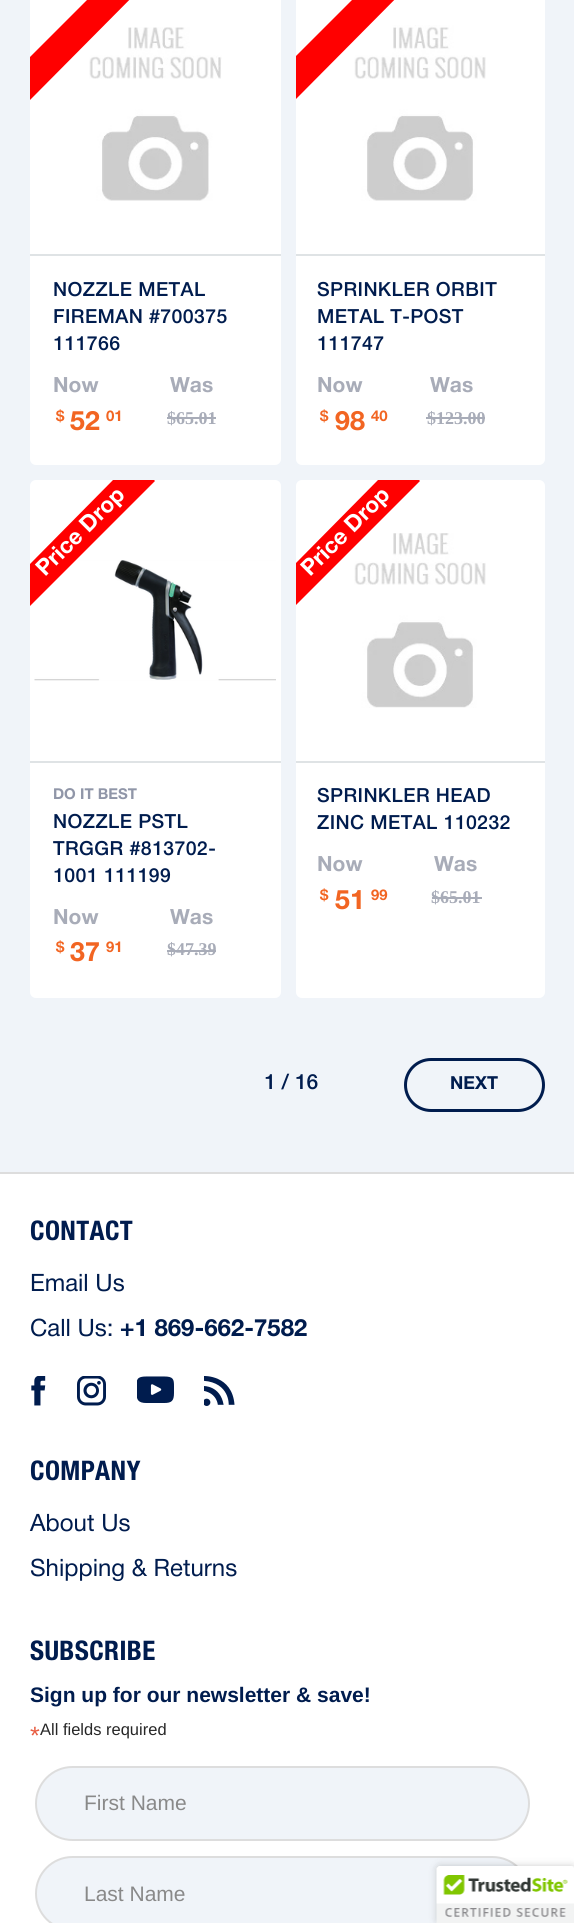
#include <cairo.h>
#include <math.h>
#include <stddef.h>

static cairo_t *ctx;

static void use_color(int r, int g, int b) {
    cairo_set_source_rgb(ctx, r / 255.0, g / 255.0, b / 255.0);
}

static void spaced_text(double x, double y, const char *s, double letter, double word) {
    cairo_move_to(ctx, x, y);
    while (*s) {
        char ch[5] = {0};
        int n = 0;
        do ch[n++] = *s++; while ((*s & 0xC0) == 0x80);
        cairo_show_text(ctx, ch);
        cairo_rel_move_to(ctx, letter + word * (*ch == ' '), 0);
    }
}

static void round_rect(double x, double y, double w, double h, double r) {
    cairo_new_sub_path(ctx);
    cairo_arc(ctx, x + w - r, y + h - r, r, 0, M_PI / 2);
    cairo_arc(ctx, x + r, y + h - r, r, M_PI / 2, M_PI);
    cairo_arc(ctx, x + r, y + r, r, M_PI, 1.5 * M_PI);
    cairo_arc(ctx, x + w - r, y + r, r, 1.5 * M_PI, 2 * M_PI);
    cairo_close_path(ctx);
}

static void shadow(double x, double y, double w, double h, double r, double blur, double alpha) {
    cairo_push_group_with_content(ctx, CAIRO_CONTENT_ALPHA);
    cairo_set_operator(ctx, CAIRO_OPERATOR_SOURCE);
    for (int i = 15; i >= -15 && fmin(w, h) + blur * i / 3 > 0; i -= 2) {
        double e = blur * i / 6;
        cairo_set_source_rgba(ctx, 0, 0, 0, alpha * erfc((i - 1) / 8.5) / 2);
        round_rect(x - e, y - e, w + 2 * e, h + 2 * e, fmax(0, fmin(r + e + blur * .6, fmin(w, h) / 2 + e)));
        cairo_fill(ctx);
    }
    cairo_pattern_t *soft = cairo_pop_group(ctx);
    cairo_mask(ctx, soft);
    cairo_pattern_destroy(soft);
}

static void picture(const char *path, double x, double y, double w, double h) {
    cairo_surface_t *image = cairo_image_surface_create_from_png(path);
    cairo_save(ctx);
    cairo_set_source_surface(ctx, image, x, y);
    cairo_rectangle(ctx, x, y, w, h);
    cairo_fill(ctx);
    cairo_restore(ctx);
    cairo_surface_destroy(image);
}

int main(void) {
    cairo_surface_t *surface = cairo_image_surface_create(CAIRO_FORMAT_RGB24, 574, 1923);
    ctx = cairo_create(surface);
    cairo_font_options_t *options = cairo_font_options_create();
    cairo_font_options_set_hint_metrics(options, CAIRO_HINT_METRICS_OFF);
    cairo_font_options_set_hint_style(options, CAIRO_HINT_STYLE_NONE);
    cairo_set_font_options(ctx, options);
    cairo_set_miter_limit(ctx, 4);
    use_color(240, 244, 249);
    cairo_paint(ctx);
    use_color(255, 255, 255);
    round_rect(30, -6, 251, 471, 6);
    cairo_fill(ctx);
    use_color(223, 227, 229);
    cairo_rectangle(ctx, 30, 254, 251, 2);
    cairo_fill(ctx);
    picture("img1.png", 89, 27, 133, 174);
    use_color(255, 0, 0);
    cairo_new_path(ctx);
    cairo_move_to(ctx, 154, -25);
    cairo_line_to(ctx, 30, 100);
    cairo_line_to(ctx, 30, 57);
    cairo_line_to(ctx, 112, -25);
    cairo_close_path(ctx);
    cairo_fill(ctx);
    cairo_select_font_face(ctx, "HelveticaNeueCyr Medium", CAIRO_FONT_SLANT_NORMAL, CAIRO_FONT_WEIGHT_NORMAL);
    cairo_set_font_size(ctx, 19.5);
    use_color(0, 28, 78);
    spaced_text(53, 296, "NOZZLE METAL", 0.4, 0);
    spaced_text(53, 323, "FIREMAN #700375", 0.4, 0);
    spaced_text(53, 350, "111766", 0.4, 0);
    cairo_select_font_face(ctx, "HelveticaNeueCyr", CAIRO_FONT_SLANT_NORMAL, CAIRO_FONT_WEIGHT_BOLD);
    cairo_set_font_size(ctx, 21);
    use_color(168, 172, 184);
    cairo_move_to(ctx, 53, 392);
    cairo_show_text(ctx, "Now");
    cairo_set_font_size(ctx, 15);
    use_color(242, 101, 34);
    cairo_move_to(ctx, 56, 421);
    cairo_show_text(ctx, "$");
    cairo_set_font_size(ctx, 27);
    cairo_move_to(ctx, 70, 430);
    cairo_show_text(ctx, "52");
    cairo_set_font_size(ctx, 15);
    cairo_move_to(ctx, 106, 421);
    cairo_show_text(ctx, "01");
    cairo_set_font_size(ctx, 21);
    use_color(168, 172, 184);
    cairo_move_to(ctx, 170, 392);
    cairo_show_text(ctx, "Was");
    cairo_select_font_face(ctx, "Liberation Serif", CAIRO_FONT_SLANT_NORMAL, CAIRO_FONT_WEIGHT_BOLD);
    cairo_set_font_size(ctx, 18);
    cairo_move_to(ctx, 167, 424);
    cairo_show_text(ctx, "$65.01");
    cairo_rectangle(ctx, 167, 417, 49, 2);
    cairo_fill(ctx);
    use_color(255, 255, 255);
    round_rect(296, -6, 249, 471, 6);
    cairo_fill(ctx);
    use_color(223, 227, 229);
    cairo_rectangle(ctx, 296, 254, 249, 2);
    cairo_fill(ctx);
    picture("img2.png", 354, 25, 132, 176);
    use_color(255, 0, 0);
    cairo_new_path(ctx);
    cairo_move_to(ctx, 419, -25);
    cairo_line_to(ctx, 296, 99);
    cairo_line_to(ctx, 296, 56);
    cairo_line_to(ctx, 377, -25);
    cairo_close_path(ctx);
    cairo_fill(ctx);
    cairo_select_font_face(ctx, "HelveticaNeueCyr Medium", CAIRO_FONT_SLANT_NORMAL, CAIRO_FONT_WEIGHT_NORMAL);
    cairo_set_font_size(ctx, 19.5);
    use_color(0, 28, 78);
    spaced_text(317, 296, "SPRINKLER ORBIT", 0.4, 0);
    spaced_text(317, 323, "METAL T-POST", 0.4, 0);
    spaced_text(317, 350, "111747", 0.4, 0);
    cairo_select_font_face(ctx, "HelveticaNeueCyr", CAIRO_FONT_SLANT_NORMAL, CAIRO_FONT_WEIGHT_BOLD);
    cairo_set_font_size(ctx, 21);
    use_color(168, 172, 184);
    cairo_move_to(ctx, 317, 392);
    cairo_show_text(ctx, "Now");
    cairo_set_font_size(ctx, 15);
    use_color(242, 101, 34);
    cairo_move_to(ctx, 320, 421);
    cairo_show_text(ctx, "$");
    cairo_set_font_size(ctx, 27);
    cairo_move_to(ctx, 335, 430);
    cairo_show_text(ctx, "98");
    cairo_set_font_size(ctx, 15);
    cairo_move_to(ctx, 371, 421);
    cairo_show_text(ctx, "40");
    cairo_set_font_size(ctx, 21);
    use_color(168, 172, 184);
    cairo_move_to(ctx, 430, 392);
    cairo_show_text(ctx, "Was");
    cairo_select_font_face(ctx, "Liberation Serif", CAIRO_FONT_SLANT_NORMAL, CAIRO_FONT_WEIGHT_BOLD);
    cairo_set_font_size(ctx, 18);
    cairo_move_to(ctx, 427, 424);
    cairo_show_text(ctx, "$123.00");
    cairo_rectangle(ctx, 426, 417, 59, 2);
    cairo_fill(ctx);
    use_color(255, 255, 255);
    round_rect(30, 480, 251, 518, 6);
    cairo_fill(ctx);
    use_color(223, 227, 229);
    cairo_rectangle(ctx, 30, 761, 251, 2);
    cairo_fill(ctx);
    picture("img3.png", 34, 560, 242, 121);
    use_color(255, 0, 0);
    cairo_new_path(ctx);
    cairo_move_to(ctx, 154, 480);
    cairo_line_to(ctx, 155, 481);
    cairo_line_to(ctx, 30, 606);
    cairo_line_to(ctx, 30, 564);
    cairo_line_to(ctx, 113, 480);
    cairo_close_path(ctx);
    cairo_fill(ctx);
    cairo_select_font_face(ctx, "HelveticaNeueCyr", CAIRO_FONT_SLANT_NORMAL, CAIRO_FONT_WEIGHT_BOLD);
    cairo_set_font_size(ctx, 22.5);
    use_color(255, 255, 255);
    cairo_save(ctx);
    cairo_translate(ctx, 45, 577);
    cairo_rotate(ctx, -45 * M_PI / 180);
    cairo_move_to(ctx, 0, 0);
    cairo_show_text(ctx, "Price Drop");
    cairo_restore(ctx);
    cairo_set_font_size(ctx, 15);
    use_color(144, 150, 168);
    cairo_move_to(ctx, 53, 799);
    cairo_show_text(ctx, "DO IT BEST");
    cairo_select_font_face(ctx, "HelveticaNeueCyr Medium", CAIRO_FONT_SLANT_NORMAL, CAIRO_FONT_WEIGHT_NORMAL);
    cairo_set_font_size(ctx, 19.5);
    use_color(0, 28, 78);
    spaced_text(53, 828, "NOZZLE PSTL", 0.4, 0);
    spaced_text(53, 855, "TRGGR #813702-", 0.4, 0);
    spaced_text(53, 882, "1001 111199", 0.4, 0);
    cairo_select_font_face(ctx, "HelveticaNeueCyr", CAIRO_FONT_SLANT_NORMAL, CAIRO_FONT_WEIGHT_BOLD);
    cairo_set_font_size(ctx, 21);
    use_color(168, 172, 184);
    cairo_move_to(ctx, 53, 924);
    cairo_show_text(ctx, "Now");
    cairo_set_font_size(ctx, 15);
    use_color(242, 101, 34);
    cairo_move_to(ctx, 56, 952);
    cairo_show_text(ctx, "$");
    cairo_set_font_size(ctx, 27);
    cairo_move_to(ctx, 70, 961);
    cairo_show_text(ctx, "37");
    cairo_set_font_size(ctx, 15);
    cairo_move_to(ctx, 106, 952);
    cairo_show_text(ctx, "91");
    cairo_set_font_size(ctx, 21);
    use_color(168, 172, 184);
    cairo_move_to(ctx, 170, 924);
    cairo_show_text(ctx, "Was");
    cairo_select_font_face(ctx, "Liberation Serif", CAIRO_FONT_SLANT_NORMAL, CAIRO_FONT_WEIGHT_BOLD);
    cairo_set_font_size(ctx, 18);
    cairo_move_to(ctx, 167, 955);
    cairo_show_text(ctx, "$47.39");
    cairo_rectangle(ctx, 167, 950, 49, 2);
    cairo_fill(ctx);
    use_color(255, 255, 255);
    round_rect(296, 480, 249, 518, 6);
    cairo_fill(ctx);
    use_color(223, 227, 229);
    cairo_rectangle(ctx, 296, 761, 249, 2);
    cairo_fill(ctx);
    picture("img4.png", 354, 533, 132, 175);
    use_color(255, 0, 0);
    cairo_new_path(ctx);
    cairo_move_to(ctx, 419, 480);
    cairo_line_to(ctx, 420, 481);
    cairo_line_to(ctx, 296, 605);
    cairo_line_to(ctx, 296, 563);
    cairo_line_to(ctx, 378, 480);
    cairo_close_path(ctx);
    cairo_fill(ctx);
    cairo_select_font_face(ctx, "HelveticaNeueCyr", CAIRO_FONT_SLANT_NORMAL, CAIRO_FONT_WEIGHT_BOLD);
    cairo_set_font_size(ctx, 22.5);
    use_color(255, 255, 255);
    cairo_save(ctx);
    cairo_translate(ctx, 310, 577);
    cairo_rotate(ctx, -45 * M_PI / 180);
    cairo_move_to(ctx, 0, 0);
    cairo_show_text(ctx, "Price Drop");
    cairo_restore(ctx);
    cairo_select_font_face(ctx, "HelveticaNeueCyr Medium", CAIRO_FONT_SLANT_NORMAL, CAIRO_FONT_WEIGHT_NORMAL);
    cairo_set_font_size(ctx, 19.5);
    use_color(0, 28, 78);
    spaced_text(317, 802, "SPRINKLER HEAD", 0.4, 0);
    spaced_text(317, 829, "ZINC METAL 110232", 0.4, 0);
    cairo_select_font_face(ctx, "HelveticaNeueCyr", CAIRO_FONT_SLANT_NORMAL, CAIRO_FONT_WEIGHT_BOLD);
    cairo_set_font_size(ctx, 21);
    use_color(168, 172, 184);
    cairo_move_to(ctx, 317, 871);
    cairo_show_text(ctx, "Now");
    cairo_set_font_size(ctx, 15);
    use_color(242, 101, 34);
    cairo_move_to(ctx, 320, 900);
    cairo_show_text(ctx, "$");
    cairo_set_font_size(ctx, 27);
    cairo_move_to(ctx, 335, 909);
    cairo_show_text(ctx, "51");
    cairo_set_font_size(ctx, 15);
    cairo_move_to(ctx, 371, 900);
    cairo_show_text(ctx, "99");
    cairo_set_font_size(ctx, 21);
    use_color(168, 172, 184);
    cairo_move_to(ctx, 434, 871);
    cairo_show_text(ctx, "Was");
    cairo_select_font_face(ctx, "Liberation Serif", CAIRO_FONT_SLANT_NORMAL, CAIRO_FONT_WEIGHT_BOLD);
    cairo_set_font_size(ctx, 18);
    cairo_move_to(ctx, 431, 903);
    cairo_show_text(ctx, "$65.01");
    cairo_rectangle(ctx, 432, 897, 50, 2);
    cairo_fill(ctx);
    cairo_select_font_face(ctx, "HelveticaNeueCyr Medium", CAIRO_FONT_SLANT_NORMAL, CAIRO_FONT_WEIGHT_NORMAL);
    cairo_set_font_size(ctx, 21);
    use_color(0, 28, 78);
    cairo_move_to(ctx, 264, 1089);
    cairo_show_text(ctx, "1 / 16");
    round_rect(405.5, 1059.5, 138, 51, 25.5);
    cairo_set_line_width(ctx, 3);
    cairo_stroke(ctx);
    cairo_select_font_face(ctx, "HelveticaNeueCyr", CAIRO_FONT_SLANT_NORMAL, CAIRO_FONT_WEIGHT_BOLD);
    cairo_set_font_size(ctx, 18);
    cairo_move_to(ctx, 450, 1089);
    cairo_show_text(ctx, "NEXT");
    use_color(255, 255, 255);
    cairo_rectangle(ctx, 0, 1174, 574, 749);
    cairo_fill(ctx);
    use_color(221, 221, 221);
    cairo_rectangle(ctx, 0, 1172, 574, 2);
    cairo_fill(ctx);
    cairo_select_font_face(ctx, "Helvetica Neue", CAIRO_FONT_SLANT_NORMAL, CAIRO_FONT_WEIGHT_BOLD);
    cairo_set_font_size(ctx, 27);
    use_color(0, 28, 78);
    spaced_text(30, 1240, "CONTACT", 0.4, 0);
    cairo_select_font_face(ctx, "HelveticaNeueCyr", CAIRO_FONT_SLANT_NORMAL, CAIRO_FONT_WEIGHT_NORMAL);
    cairo_set_font_size(ctx, 24);
    cairo_move_to(ctx, 30, 1291);
    cairo_show_text(ctx, "Email Us");
    cairo_move_to(ctx, 30, 1336);
    cairo_show_text(ctx, "Call Us:");
    cairo_select_font_face(ctx, "HelveticaNeueCyr", CAIRO_FONT_SLANT_NORMAL, CAIRO_FONT_WEIGHT_BOLD);
    cairo_move_to(ctx, 120, 1336);
    cairo_show_text(ctx, "+1 869-662-7582");
    picture("img5.png", 31, 1376, 15, 30);
    picture("img6.png", 77, 1376, 29, 30);
    picture("img7.png", 137, 1376, 37, 27);
    picture("img8.png", 204, 1376, 31, 30);
    cairo_select_font_face(ctx, "Helvetica Neue", CAIRO_FONT_SLANT_NORMAL, CAIRO_FONT_WEIGHT_BOLD);
    cairo_set_font_size(ctx, 27);
    spaced_text(30, 1480, "COMPANY", 0.4, 0);
    cairo_select_font_face(ctx, "HelveticaNeueCyr", CAIRO_FONT_SLANT_NORMAL, CAIRO_FONT_WEIGHT_NORMAL);
    cairo_set_font_size(ctx, 24);
    cairo_move_to(ctx, 30, 1531);
    cairo_show_text(ctx, "About Us");
    cairo_move_to(ctx, 30, 1576);
    cairo_show_text(ctx, "Shipping & Returns");
    cairo_select_font_face(ctx, "Helvetica Neue", CAIRO_FONT_SLANT_NORMAL, CAIRO_FONT_WEIGHT_BOLD);
    cairo_set_font_size(ctx, 27);
    spaced_text(30, 1660, "SUBSCRIBE", 0.4, 0);
    cairo_select_font_face(ctx, "Liberation Sans", CAIRO_FONT_SLANT_NORMAL, CAIRO_FONT_WEIGHT_BOLD);
    cairo_set_font_size(ctx, 21);
    cairo_move_to(ctx, 30, 1702);
    cairo_show_text(ctx, "Sign up for our newsletter & save!");
    cairo_select_font_face(ctx, "Liberation Sans", CAIRO_FONT_SLANT_NORMAL, CAIRO_FONT_WEIGHT_NORMAL);
    cairo_set_font_size(ctx, 16.5);
    use_color(39, 39, 39);
    cairo_move_to(ctx, 40, 1735);
    cairo_show_text(ctx, "All fields required");
    cairo_set_font_size(ctx, 25);
    use_color(232, 92, 65);
    cairo_move_to(ctx, 30, 1744);
    cairo_show_text(ctx, "*");
    use_color(240, 244, 249);
    round_rect(36, 1767, 493, 73, 36.5);
    cairo_fill_preserve(ctx);
    use_color(221, 221, 221);
    cairo_set_line_width(ctx, 2);
    cairo_stroke(ctx);
    cairo_set_font_size(ctx, 21);
    use_color(137, 137, 137);
    cairo_move_to(ctx, 84, 1810);
    cairo_show_text(ctx, "First Name");
    use_color(240, 244, 249);
    round_rect(36, 1857, 493, 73, 36.5);
    cairo_fill_preserve(ctx);
    use_color(221, 221, 221);
    cairo_stroke(ctx);
    use_color(137, 137, 137);
    cairo_move_to(ctx, 84, 1901);
    cairo_show_text(ctx, "Last Name");
    use_color(0, 0, 0);
    shadow(437, 1866, 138, 57, 3, 4, 0.2);
    use_color(255, 255, 255);
    cairo_new_path(ctx);
    cairo_move_to(ctx, 440, 1866);
    cairo_line_to(ctx, 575, 1866);
    cairo_line_to(ctx, 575, 1923);
    cairo_line_to(ctx, 437, 1923);
    cairo_line_to(ctx, 437, 1869);
    cairo_curve_to(ctx, 437, 1867.5, 438.5, 1866, 440, 1866);
    cairo_close_path(ctx);
    cairo_fill(ctx);
    picture("img9.png", 436, 1866, 138, 57);
    cairo_surface_write_to_png(surface, "result.png");
    cairo_font_options_destroy(options);
    cairo_destroy(ctx);
    cairo_surface_destroy(surface);
    return 0;
}
